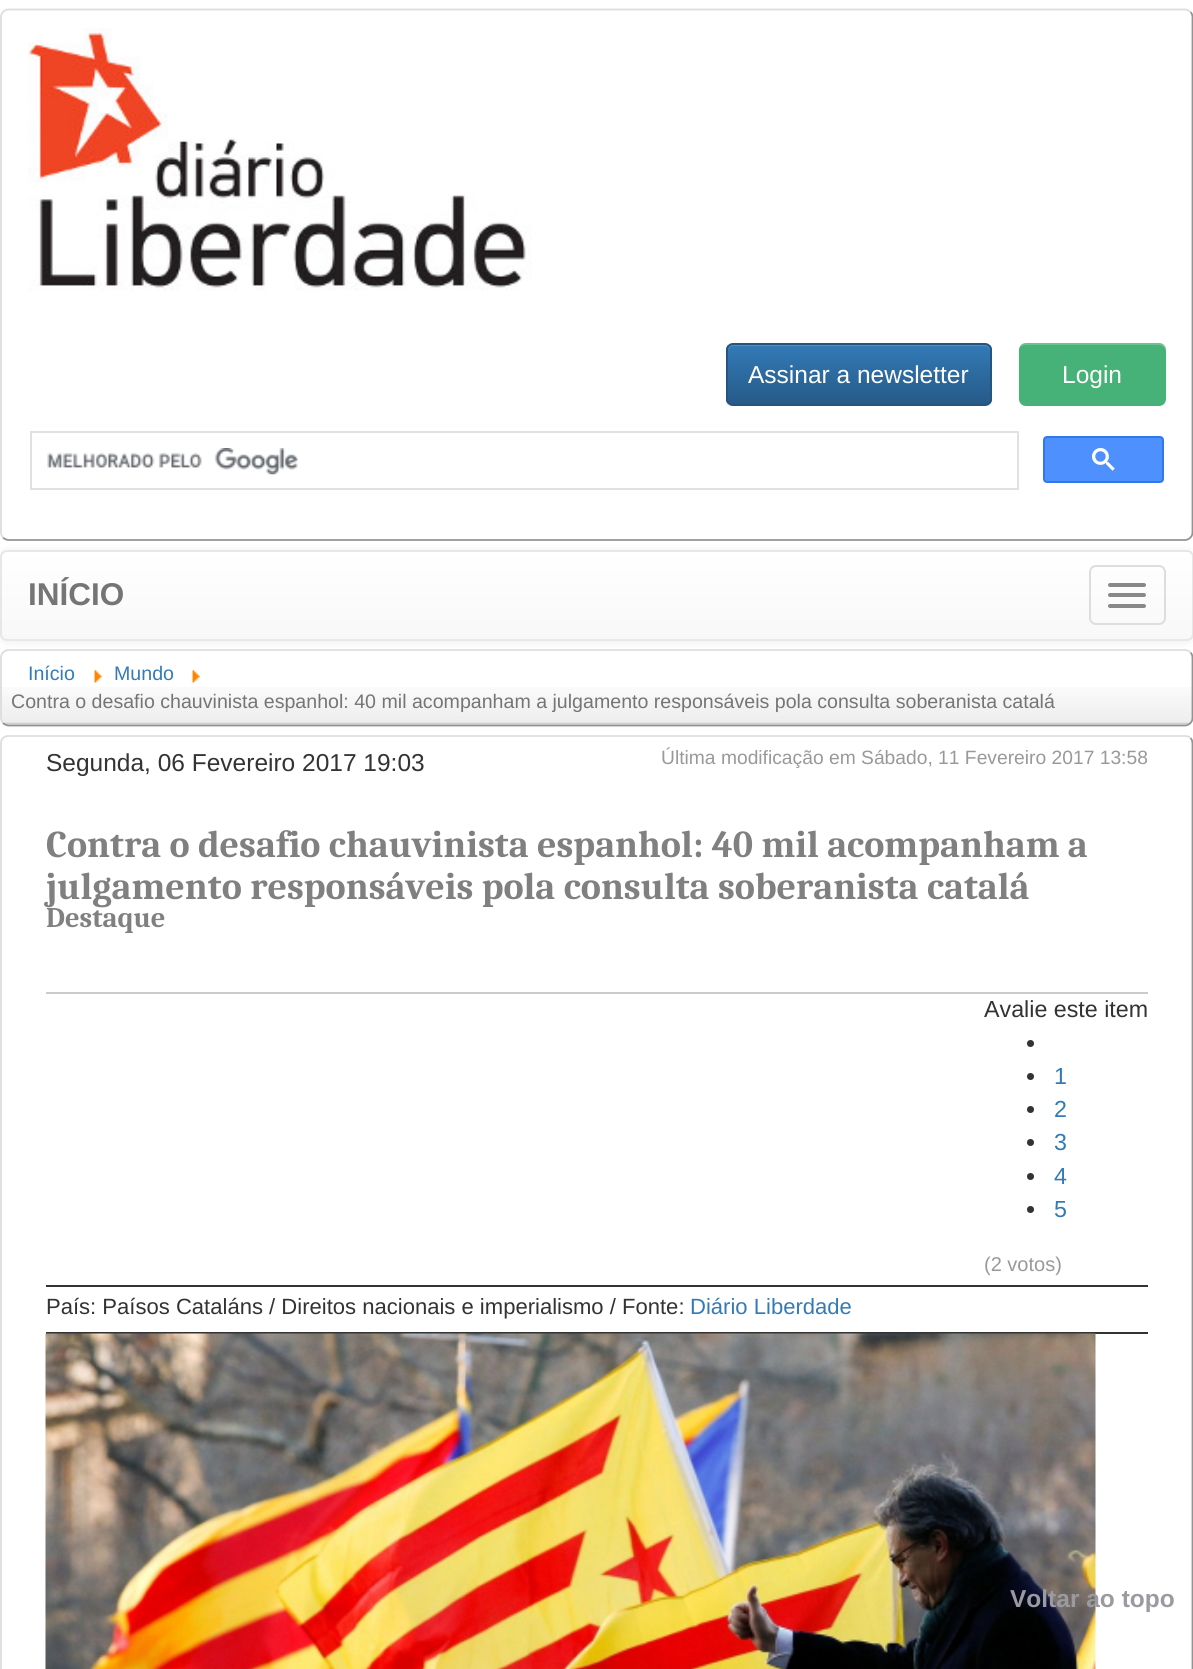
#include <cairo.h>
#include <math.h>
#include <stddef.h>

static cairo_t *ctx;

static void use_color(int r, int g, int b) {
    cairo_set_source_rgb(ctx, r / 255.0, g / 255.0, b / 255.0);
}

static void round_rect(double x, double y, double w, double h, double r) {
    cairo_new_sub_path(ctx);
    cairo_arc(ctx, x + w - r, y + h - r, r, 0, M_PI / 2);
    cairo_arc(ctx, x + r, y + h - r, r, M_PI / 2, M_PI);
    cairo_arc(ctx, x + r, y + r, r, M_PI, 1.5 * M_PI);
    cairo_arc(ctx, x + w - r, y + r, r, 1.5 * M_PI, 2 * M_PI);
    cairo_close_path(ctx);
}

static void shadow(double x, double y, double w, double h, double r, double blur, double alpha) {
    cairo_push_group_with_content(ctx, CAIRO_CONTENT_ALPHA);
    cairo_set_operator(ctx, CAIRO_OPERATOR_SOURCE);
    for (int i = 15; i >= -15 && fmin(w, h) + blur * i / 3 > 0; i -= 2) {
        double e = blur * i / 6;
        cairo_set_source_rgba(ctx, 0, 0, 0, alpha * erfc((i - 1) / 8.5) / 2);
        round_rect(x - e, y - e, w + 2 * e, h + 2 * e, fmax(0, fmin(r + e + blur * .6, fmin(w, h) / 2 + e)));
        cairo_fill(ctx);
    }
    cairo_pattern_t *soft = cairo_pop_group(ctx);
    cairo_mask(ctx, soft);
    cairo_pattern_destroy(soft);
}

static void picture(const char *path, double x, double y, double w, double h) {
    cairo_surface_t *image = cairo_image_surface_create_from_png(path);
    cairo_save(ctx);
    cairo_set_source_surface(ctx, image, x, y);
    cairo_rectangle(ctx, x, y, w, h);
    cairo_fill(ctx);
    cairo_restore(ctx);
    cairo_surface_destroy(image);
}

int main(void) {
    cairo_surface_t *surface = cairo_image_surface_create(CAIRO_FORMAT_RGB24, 1193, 1669);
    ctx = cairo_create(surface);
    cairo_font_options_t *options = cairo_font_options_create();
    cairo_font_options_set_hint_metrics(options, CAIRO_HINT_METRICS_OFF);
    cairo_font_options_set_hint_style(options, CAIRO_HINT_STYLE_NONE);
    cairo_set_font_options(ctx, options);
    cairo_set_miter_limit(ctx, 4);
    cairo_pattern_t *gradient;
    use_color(255, 255, 255);
    cairo_paint(ctx);
    cairo_new_path(ctx);
    cairo_move_to(ctx, 1190.5, 12);
    cairo_curve_to(ctx, 1192, 13.5, 1192.5, 15.5, 1192.5, 17.5);
    cairo_line_to(ctx, 1192.5, 532);
    cairo_curve_to(ctx, 1192.5, 534, 1192, 536, 1190.5, 537.5);
    cairo_curve_to(ctx, 1189, 539, 1187, 540, 1185, 540);
    cairo_line_to(ctx, 9, 540);
    cairo_curve_to(ctx, 6.5, 540, 4.5, 539, 3, 537.5);
    use_color(147, 147, 147);
    cairo_set_line_width(ctx, 1.8);
    cairo_stroke(ctx);
    cairo_new_path(ctx);
    cairo_move_to(ctx, 3, 537.5);
    cairo_curve_to(ctx, 1.5, 536, 1, 534, 1, 532);
    cairo_line_to(ctx, 1, 17.5);
    cairo_curve_to(ctx, 1, 15.5, 1.5, 13.5, 3, 12);
    cairo_curve_to(ctx, 4.5, 10.5, 6.5, 9.5, 8.5, 9.5);
    cairo_line_to(ctx, 1185, 9.5);
    cairo_curve_to(ctx, 1187, 9.5, 1189, 10.5, 1190.5, 12);
    use_color(221, 221, 221);
    cairo_stroke(ctx);
    picture("img1.png", 28, 28, 504, 263);
    use_color(0, 0, 0);
    shadow(726, 345, 266, 63, 7, 1, 0.07);
    cairo_save(ctx);
    round_rect(726, 343, 266, 63, 7);
    cairo_clip(ctx);
    gradient = cairo_pattern_create_linear(859, 345, 859, 404);
    cairo_pattern_add_color_stop_rgba(gradient, 0, 0.2, 0.478, 0.718, 1);
    cairo_pattern_add_color_stop_rgba(gradient, 1, 0.149, 0.353, 0.533, 1);
    cairo_set_source(ctx, gradient);
    cairo_pattern_destroy(gradient);
    cairo_rectangle(ctx, 726, 345, 266, 59);
    cairo_fill(ctx);
    cairo_restore(ctx);
    cairo_set_source_rgba(ctx, 1, 1, 1, 0.15);
    cairo_new_path(ctx);
    cairo_move_to(ctx, 733, 346);
    cairo_line_to(ctx, 985, 346);
    cairo_curve_to(ctx, 988, 346, 990, 349, 990, 352);
    cairo_line_to(ctx, 990, 402);
    cairo_curve_to(ctx, 991, 401, 991, 400, 991, 399);
    cairo_line_to(ctx, 991, 350);
    cairo_curve_to(ctx, 991, 347, 989, 345, 986, 345);
    cairo_line_to(ctx, 733, 345);
    cairo_curve_to(ctx, 730, 345, 728, 347, 728, 350);
    cairo_line_to(ctx, 728, 352);
    cairo_curve_to(ctx, 728, 349, 730, 346, 733, 346);
    cairo_close_path(ctx);
    cairo_fill(ctx);
    round_rect(727, 344, 264, 61, 6);
    use_color(36, 85, 128);
    cairo_set_line_width(ctx, 2);
    cairo_stroke(ctx);
    cairo_select_font_face(ctx, "Liberation Sans", CAIRO_FONT_SLANT_NORMAL, CAIRO_FONT_WEIGHT_NORMAL);
    cairo_set_font_size(ctx, 24.5);
    use_color(255, 255, 255);
    cairo_move_to(ctx, 748, 383);
    cairo_show_text(ctx, "Assinar a newsletter");
    use_color(0, 0, 0);
    shadow(1019, 345, 147, 63, 7, 2, 0.05);
    use_color(70, 178, 119);
    round_rect(1019, 343, 147, 63, 7);
    cairo_fill(ctx);
    cairo_set_source_rgba(ctx, 1, 1, 1, 0.2);
    cairo_new_path(ctx);
    cairo_move_to(ctx, 1026, 345);
    cairo_line_to(ctx, 1158, 345);
    cairo_curve_to(ctx, 1162, 345, 1166, 348, 1166, 352);
    cairo_line_to(ctx, 1166, 350);
    cairo_curve_to(ctx, 1166, 346, 1163, 343, 1159, 343);
    cairo_line_to(ctx, 1026, 343);
    cairo_curve_to(ctx, 1023, 343, 1020, 345, 1019, 348);
    cairo_curve_to(ctx, 1021, 346, 1023, 345, 1026, 345);
    cairo_close_path(ctx);
    cairo_fill(ctx);
    use_color(255, 255, 255);
    cairo_move_to(ctx, 1062, 383);
    cairo_show_text(ctx, "Login");
    cairo_rectangle(ctx, 727, 406, 438, 4);
    cairo_fill(ctx);
    cairo_rectangle(ctx, 31, 432, 987, 57);
    use_color(223, 225, 229);
    cairo_stroke(ctx);
    picture("img2.png", 47, 448, 251, 27);
    use_color(77, 144, 254);
    round_rect(1044, 437, 119, 45, 3);
    cairo_fill_preserve(ctx);
    use_color(48, 121, 237);
    cairo_stroke(ctx);
    picture("img3.png", 1092, 448, 23, 23);
    picture("img4.png", 0, 687, 1193, 38);
    cairo_new_path(ctx);
    cairo_move_to(ctx, 1190.5, 652.5);
    cairo_curve_to(ctx, 1192, 654, 1192.5, 656, 1192.5, 658);
    cairo_line_to(ctx, 1192.5, 717.5);
    cairo_curve_to(ctx, 1192.5, 719.5, 1192, 721.5, 1190.5, 723);
    cairo_curve_to(ctx, 1189, 724.5, 1187, 725.5, 1185, 725.5);
    cairo_line_to(ctx, 9, 725.5);
    cairo_curve_to(ctx, 6.5, 725.5, 4.5, 724.5, 3, 723);
    use_color(147, 147, 147);
    cairo_set_line_width(ctx, 1.8);
    cairo_stroke(ctx);
    cairo_new_path(ctx);
    cairo_move_to(ctx, 3, 723);
    cairo_curve_to(ctx, 1.5, 721.5, 1, 719.5, 1, 717.5);
    cairo_line_to(ctx, 1, 658);
    cairo_curve_to(ctx, 1, 656, 1.5, 654, 3, 652.5);
    cairo_curve_to(ctx, 4.5, 651, 6.5, 650, 8.5, 650);
    cairo_line_to(ctx, 1185, 650);
    cairo_curve_to(ctx, 1187, 650, 1189, 651, 1190.5, 652.5);
    use_color(221, 221, 221);
    cairo_stroke(ctx);
    use_color(0, 0, 0);
    shadow(0, 551, 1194, 91, 7, 4.5, 0.07);
    cairo_save(ctx);
    round_rect(0, 550, 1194, 91, 7);
    cairo_clip(ctx);
    gradient = cairo_pattern_create_linear(597, 551, 597, 639);
    cairo_pattern_add_color_stop_rgba(gradient, 0, 1, 1, 1, 1);
    cairo_pattern_add_color_stop_rgba(gradient, 1, 0.973, 0.973, 0.973, 1);
    cairo_set_source(ctx, gradient);
    cairo_pattern_destroy(gradient);
    cairo_rectangle(ctx, 0, 551, 1193, 88);
    cairo_fill(ctx);
    cairo_restore(ctx);
    round_rect(1, 551, 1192, 89, 6);
    use_color(231, 231, 231);
    cairo_set_line_width(ctx, 2);
    cairo_stroke(ctx);
    cairo_select_font_face(ctx, "Liberation Sans", CAIRO_FONT_SLANT_NORMAL, CAIRO_FONT_WEIGHT_BOLD);
    cairo_set_font_size(ctx, 31.5);
    use_color(117, 117, 117);
    cairo_move_to(ctx, 28, 605);
    cairo_show_text(ctx, "INÍCIO");
    round_rect(1090, 566, 75, 58, 6);
    use_color(221, 221, 221);
    cairo_stroke(ctx);
    use_color(136, 136, 136);
    round_rect(1108, 583, 38, 4, 2);
    cairo_fill(ctx);
    round_rect(1108, 593, 38, 4, 2);
    cairo_fill(ctx);
    round_rect(1108, 604, 38, 4, 2);
    cairo_fill(ctx);
    cairo_select_font_face(ctx, "Liberation Sans", CAIRO_FONT_SLANT_NORMAL, CAIRO_FONT_WEIGHT_NORMAL);
    cairo_set_font_size(ctx, 19.6);
    use_color(51, 122, 183);
    cairo_move_to(ctx, 28, 680);
    cairo_show_text(ctx, "Início");
    picture("img5.png", 94, 669, 8, 14);
    cairo_move_to(ctx, 114, 680);
    cairo_show_text(ctx, "Mundo");
    picture("img5.png", 192, 669, 8, 14);
    use_color(117, 117, 117);
    cairo_move_to(ctx, 11, 708);
    cairo_show_text(ctx, "Contra o desafio chauvinista espanhol: 40 mil acompanham a julgamento responsáveis pola consulta soberanista catalá");
    cairo_new_path(ctx);
    cairo_move_to(ctx, 1190.5, 738);
    cairo_curve_to(ctx, 1192, 739.5, 1192.5, 741.5, 1192.5, 744);
    cairo_line_to(ctx, 1192.5, 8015);
    cairo_curve_to(ctx, 1192.5, 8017, 1192, 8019, 1190.5, 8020.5);
    cairo_curve_to(ctx, 1189, 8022, 1187, 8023, 1185, 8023);
    cairo_line_to(ctx, 9, 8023);
    cairo_curve_to(ctx, 6.5, 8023, 4.5, 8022, 3, 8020.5);
    use_color(147, 147, 147);
    cairo_set_line_width(ctx, 1.8);
    cairo_stroke(ctx);
    cairo_new_path(ctx);
    cairo_move_to(ctx, 3, 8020.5);
    cairo_curve_to(ctx, 1.5, 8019, 1, 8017, 1, 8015);
    cairo_line_to(ctx, 1, 744);
    cairo_curve_to(ctx, 1, 741.5, 1.5, 739.5, 3, 738);
    cairo_curve_to(ctx, 4.5, 736.5, 6.5, 736, 8.5, 736);
    cairo_line_to(ctx, 1185, 736);
    cairo_curve_to(ctx, 1187, 736, 1189, 736.5, 1190.5, 738);
    use_color(221, 221, 221);
    cairo_stroke(ctx);
    cairo_set_font_size(ctx, 24.5);
    use_color(51, 51, 51);
    cairo_move_to(ctx, 46, 771);
    cairo_show_text(ctx, "Segunda, 06 Fevereiro 2017 19:03");
    cairo_set_font_size(ctx, 19.25);
    use_color(153, 153, 153);
    cairo_move_to(ctx, 661, 764);
    cairo_show_text(ctx, "Última modificação em Sábado, 11 Fevereiro 2017 13:58");
    cairo_select_font_face(ctx, "Caladea", CAIRO_FONT_SLANT_NORMAL, CAIRO_FONT_WEIGHT_BOLD);
    cairo_set_font_size(ctx, 38);
    use_color(128, 128, 128);
    cairo_move_to(ctx, 46, 857);
    cairo_show_text(ctx, "Contra o desafio chauvinista espanhol: 40 mil acompanham a");
    cairo_move_to(ctx, 46, 899);
    cairo_show_text(ctx, "julgamento responsáveis pola consulta soberanista catalá");
    cairo_set_font_size(ctx, 28.5);
    cairo_move_to(ctx, 46, 927);
    cairo_show_text(ctx, "Destaque");
    use_color(204, 204, 204);
    cairo_rectangle(ctx, 46, 992, 1102, 2);
    cairo_fill(ctx);
    cairo_select_font_face(ctx, "Liberation Sans", CAIRO_FONT_SLANT_NORMAL, CAIRO_FONT_WEIGHT_NORMAL);
    cairo_set_font_size(ctx, 23.25);
    use_color(51, 51, 51);
    cairo_move_to(ctx, 984, 1017);
    cairo_show_text(ctx, "Avalie este item");
    cairo_new_path(ctx);
    cairo_arc(ctx, 1030.5, 1043.5, 3.5, 0, 2 * M_PI);
    cairo_fill(ctx);
    cairo_arc(ctx, 1030.5, 1076.5, 3.5, 0, 2 * M_PI);
    cairo_fill(ctx);
    use_color(51, 122, 183);
    cairo_move_to(ctx, 1054, 1084);
    cairo_show_text(ctx, "1");
    use_color(51, 51, 51);
    cairo_new_path(ctx);
    cairo_arc(ctx, 1030.5, 1109.5, 3.5, 0, 2 * M_PI);
    cairo_fill(ctx);
    use_color(51, 122, 183);
    cairo_move_to(ctx, 1054, 1117);
    cairo_show_text(ctx, "2");
    use_color(51, 51, 51);
    cairo_new_path(ctx);
    cairo_arc(ctx, 1030.5, 1142.5, 3.5, 0, 2 * M_PI);
    cairo_fill(ctx);
    use_color(51, 122, 183);
    cairo_move_to(ctx, 1054, 1150);
    cairo_show_text(ctx, "3");
    use_color(51, 51, 51);
    cairo_new_path(ctx);
    cairo_arc(ctx, 1030.5, 1176.5, 3.5, 0, 2 * M_PI);
    cairo_fill(ctx);
    use_color(51, 122, 183);
    cairo_move_to(ctx, 1054, 1184);
    cairo_show_text(ctx, "4");
    use_color(51, 51, 51);
    cairo_new_path(ctx);
    cairo_arc(ctx, 1030.5, 1209.5, 3.5, 0, 2 * M_PI);
    cairo_fill(ctx);
    use_color(51, 122, 183);
    cairo_move_to(ctx, 1054, 1217);
    cairo_show_text(ctx, "5");
    cairo_set_font_size(ctx, 20);
    use_color(153, 153, 153);
    cairo_move_to(ctx, 984, 1271);
    cairo_show_text(ctx, "(2 votos)");
    use_color(51, 51, 51);
    cairo_rectangle(ctx, 46, 1285, 1102, 2);
    cairo_fill(ctx);
    cairo_rectangle(ctx, 46, 1332, 1102, 2);
    cairo_fill(ctx);
    cairo_set_font_size(ctx, 22.05);
    cairo_move_to(ctx, 46, 1314);
    cairo_show_text(ctx, "País: Paísos Cataláns / Direitos nacionais e imperialismo / Fonte:");
    use_color(51, 122, 183);
    cairo_move_to(ctx, 690, 1314);
    cairo_show_text(ctx, "Diário Liberdade");
    picture("img6.png", 45, 1333, 1051, 336);
    cairo_select_font_face(ctx, "Liberation Sans", CAIRO_FONT_SLANT_NORMAL, CAIRO_FONT_WEIGHT_BOLD);
    cairo_set_font_size(ctx, 24.5);
    use_color(155, 154, 159);
    cairo_move_to(ctx, 1010, 1607);
    cairo_show_text(ctx, "Voltar ao topo");
    cairo_surface_write_to_png(surface, "result.png");
    cairo_font_options_destroy(options);
    cairo_destroy(ctx);
    cairo_surface_destroy(surface);
    return 0;
}
